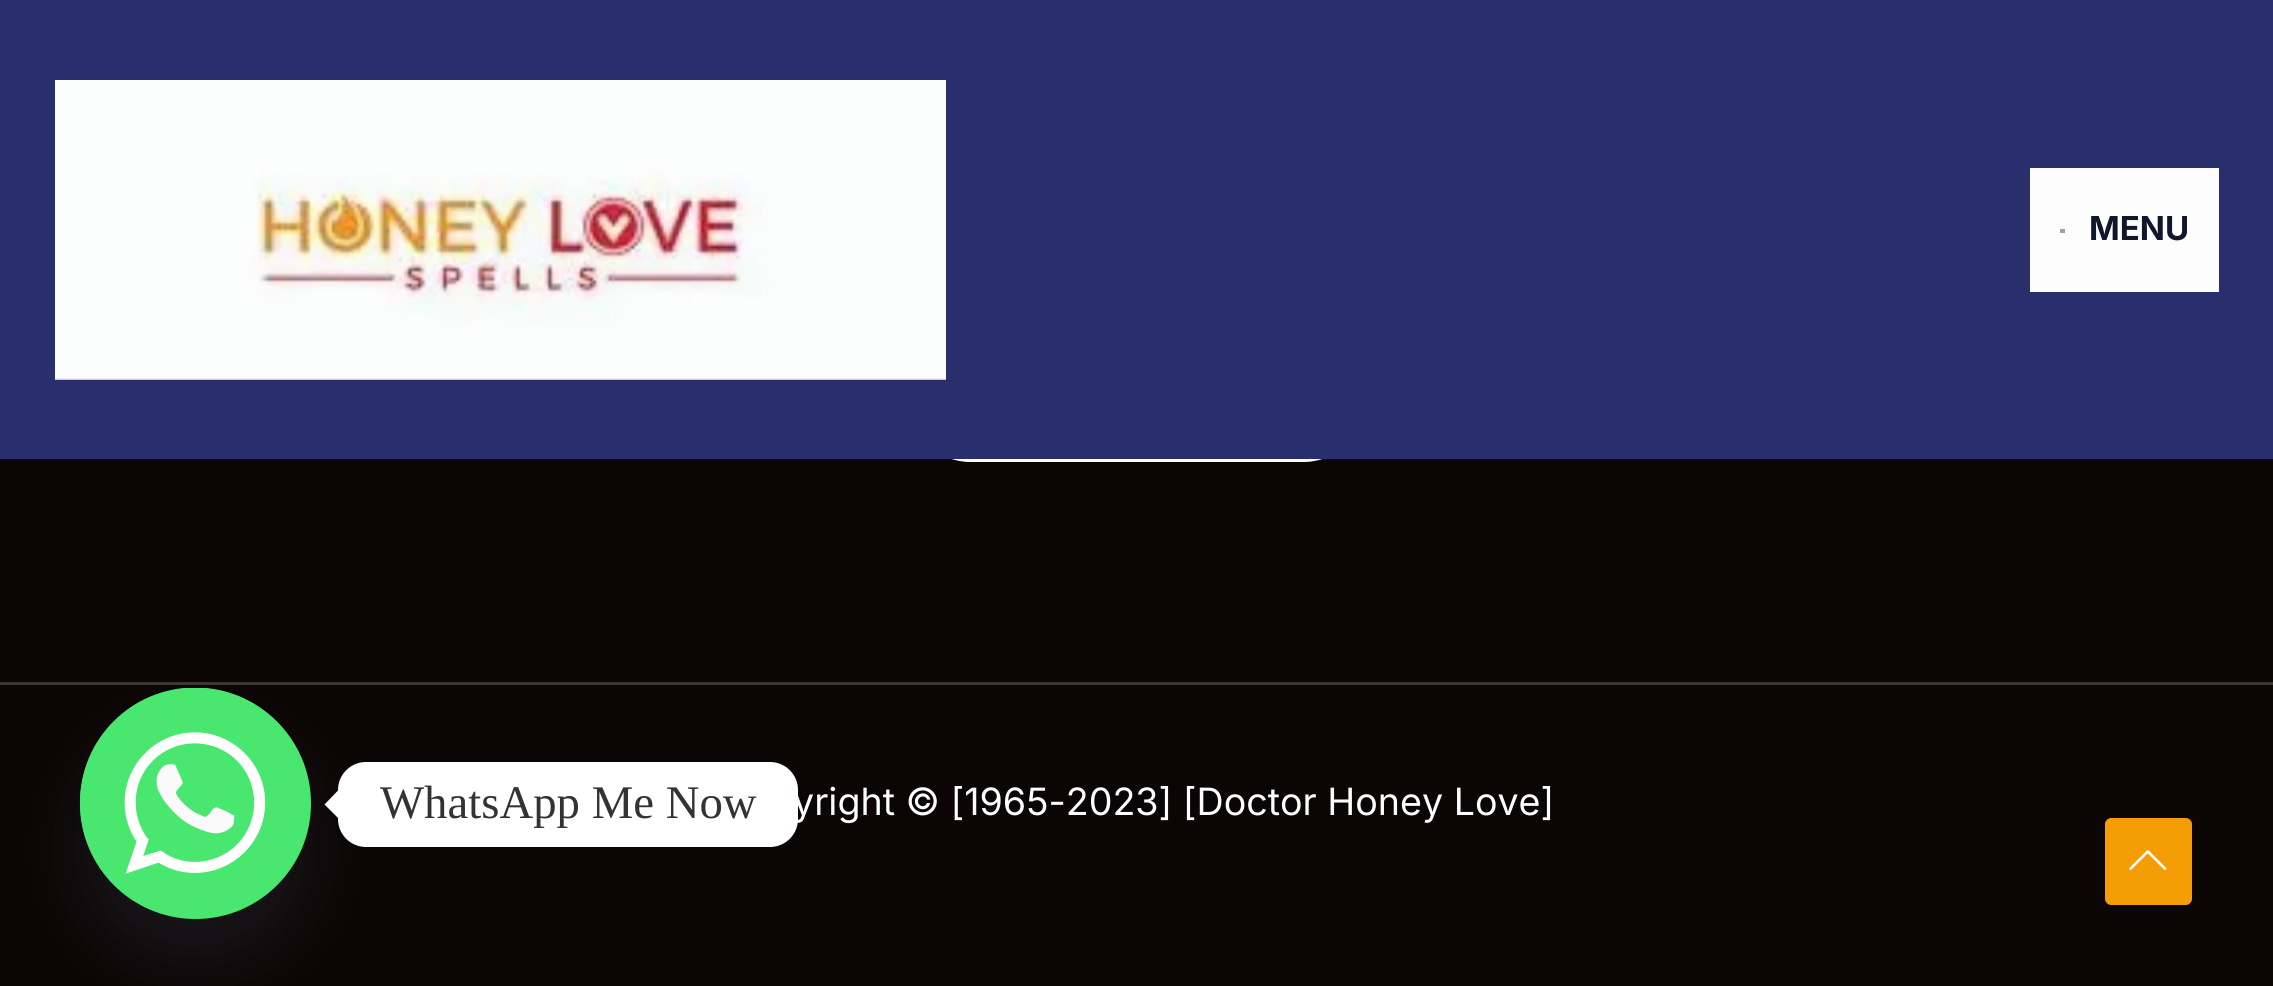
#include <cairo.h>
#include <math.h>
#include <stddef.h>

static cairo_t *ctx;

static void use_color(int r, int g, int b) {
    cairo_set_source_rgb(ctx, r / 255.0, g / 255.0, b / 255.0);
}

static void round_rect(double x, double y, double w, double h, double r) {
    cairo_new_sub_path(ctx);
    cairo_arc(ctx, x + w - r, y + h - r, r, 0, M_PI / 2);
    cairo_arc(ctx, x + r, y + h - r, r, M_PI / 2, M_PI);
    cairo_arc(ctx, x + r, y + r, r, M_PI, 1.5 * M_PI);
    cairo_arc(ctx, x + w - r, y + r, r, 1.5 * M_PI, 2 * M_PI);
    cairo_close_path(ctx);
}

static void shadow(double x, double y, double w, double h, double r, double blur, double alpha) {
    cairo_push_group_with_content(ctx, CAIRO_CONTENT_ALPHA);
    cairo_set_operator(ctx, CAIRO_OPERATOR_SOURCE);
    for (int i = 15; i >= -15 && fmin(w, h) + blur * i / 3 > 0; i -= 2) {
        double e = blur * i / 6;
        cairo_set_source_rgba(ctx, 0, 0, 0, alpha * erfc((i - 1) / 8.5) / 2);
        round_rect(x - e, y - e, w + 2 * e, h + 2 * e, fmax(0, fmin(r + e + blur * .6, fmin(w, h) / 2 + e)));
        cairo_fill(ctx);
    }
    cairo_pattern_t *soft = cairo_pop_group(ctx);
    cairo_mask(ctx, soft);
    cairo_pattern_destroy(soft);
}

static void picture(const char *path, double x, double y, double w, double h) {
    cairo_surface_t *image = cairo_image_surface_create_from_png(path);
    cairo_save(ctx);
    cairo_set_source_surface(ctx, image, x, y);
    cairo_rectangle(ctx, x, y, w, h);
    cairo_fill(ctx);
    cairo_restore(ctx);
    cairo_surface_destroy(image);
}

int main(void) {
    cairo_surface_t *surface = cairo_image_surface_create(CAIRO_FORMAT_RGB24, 2273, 986);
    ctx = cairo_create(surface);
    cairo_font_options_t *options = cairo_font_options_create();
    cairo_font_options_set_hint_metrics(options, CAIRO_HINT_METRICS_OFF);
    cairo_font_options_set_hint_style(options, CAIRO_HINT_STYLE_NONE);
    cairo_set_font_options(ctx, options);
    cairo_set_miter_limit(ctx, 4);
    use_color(12, 5, 5);
    cairo_paint(ctx);
    use_color(61, 55, 55);
    cairo_rectangle(ctx, 0, 682, 2273, 3);
    cairo_fill(ctx);
    use_color(73, 104, 126);
    shadow(80, 732, 231, 231, 115.5, 33, 0.16);
    use_color(73, 230, 112);
    cairo_arc(ctx, 195.5, 803.5, 115.5, 0, 2 * M_PI);
    cairo_fill(ctx);
    picture("img1.png", 80, 688, 225, 186);
    cairo_save(ctx);
    cairo_set_fill_rule(ctx, CAIRO_FILL_RULE_EVEN_ODD);
    cairo_new_path(ctx);
    cairo_move_to(ctx, 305, 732);
    cairo_line_to(ctx, 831, 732);
    cairo_line_to(ctx, 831, 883);
    cairo_line_to(ctx, 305, 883);
    cairo_close_path(ctx);
    cairo_move_to(ctx, 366, 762);
    cairo_line_to(ctx, 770, 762);
    cairo_curve_to(ctx, 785.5, 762, 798, 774.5, 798, 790);
    cairo_line_to(ctx, 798, 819);
    cairo_curve_to(ctx, 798, 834.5, 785.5, 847, 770, 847);
    cairo_line_to(ctx, 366, 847);
    cairo_curve_to(ctx, 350.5, 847, 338, 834.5, 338, 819);
    cairo_line_to(ctx, 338, 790);
    cairo_curve_to(ctx, 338, 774.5, 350.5, 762, 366, 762);
    cairo_close_path(ctx);
    cairo_clip(ctx);
    use_color(0, 0, 0);
    shadow(338, 765, 460, 85, 28, 10.5, 0.15);
    cairo_restore(ctx);
    use_color(255, 255, 255);
    round_rect(338, 762, 460, 85, 28);
    cairo_fill(ctx);
    cairo_new_path(ctx);
    cairo_move_to(ctx, 338, 790.5);
    cairo_line_to(ctx, 338, 818);
    cairo_line_to(ctx, 324.5, 804.5);
    cairo_close_path(ctx);
    cairo_fill(ctx);
    cairo_select_font_face(ctx, "Liberation Serif", CAIRO_FONT_SLANT_NORMAL, CAIRO_FONT_WEIGHT_NORMAL);
    cairo_set_font_size(ctx, 46.75);
    use_color(51, 51, 51);
    cairo_move_to(ctx, 380, 818);
    cairo_show_text(ctx, "WhatsApp Me Now");
    use_color(255, 255, 255);
    round_rect(910, 341, 454, 121, 60.5);
    cairo_fill(ctx);
    use_color(41, 46, 109);
    cairo_rectangle(ctx, 0, 0, 2273, 459);
    cairo_fill(ctx);
    picture("img2.png", 55, 80, 891, 300);
    use_color(253, 253, 253);
    cairo_rectangle(ctx, 2030, 168, 189, 124);
    cairo_fill(ctx);
    use_color(158, 161, 169);
    cairo_rectangle(ctx, 2060, 229, 5, 4);
    cairo_fill(ctx);
    cairo_select_font_face(ctx, "Inter", CAIRO_FONT_SLANT_NORMAL, CAIRO_FONT_WEIGHT_BOLD);
    cairo_set_font_size(ctx, 33);
    use_color(15, 23, 42);
    cairo_move_to(ctx, 2089, 240);
    cairo_show_text(ctx, "MENU");
    cairo_select_font_face(ctx, "Inter", CAIRO_FONT_SLANT_NORMAL, CAIRO_FONT_WEIGHT_NORMAL);
    cairo_set_font_size(ctx, 37.6);
    use_color(255, 255, 255);
    cairo_move_to(ctx, 793, 815);
    cairo_show_text(ctx, "yright © [1965-2023] [Doctor Honey Love]");
    use_color(245, 157, 5);
    cairo_new_path(ctx);
    cairo_move_to(ctx, 2186, 905);
    cairo_line_to(ctx, 2111, 905);
    cairo_curve_to(ctx, 2108, 905, 2105, 902, 2105, 899);
    cairo_line_to(ctx, 2105, 824);
    cairo_curve_to(ctx, 2105, 821, 2108, 818, 2111, 818);
    cairo_line_to(ctx, 2186, 818);
    cairo_curve_to(ctx, 2189, 818, 2192, 821, 2192, 824);
    cairo_line_to(ctx, 2192, 899);
    cairo_curve_to(ctx, 2192, 902, 2189, 905, 2186, 905);
    cairo_close_path(ctx);
    cairo_fill(ctx);
    picture("img3.png", 2129, 850, 38, 20);
    cairo_surface_write_to_png(surface, "result.png");
    cairo_font_options_destroy(options);
    cairo_destroy(ctx);
    cairo_surface_destroy(surface);
    return 0;
}
